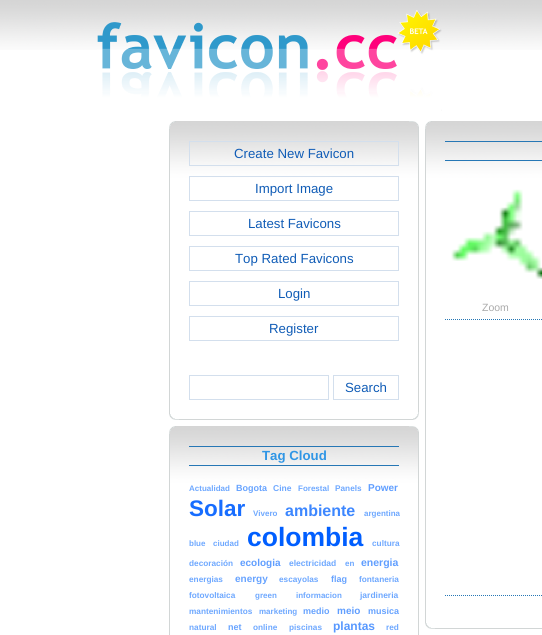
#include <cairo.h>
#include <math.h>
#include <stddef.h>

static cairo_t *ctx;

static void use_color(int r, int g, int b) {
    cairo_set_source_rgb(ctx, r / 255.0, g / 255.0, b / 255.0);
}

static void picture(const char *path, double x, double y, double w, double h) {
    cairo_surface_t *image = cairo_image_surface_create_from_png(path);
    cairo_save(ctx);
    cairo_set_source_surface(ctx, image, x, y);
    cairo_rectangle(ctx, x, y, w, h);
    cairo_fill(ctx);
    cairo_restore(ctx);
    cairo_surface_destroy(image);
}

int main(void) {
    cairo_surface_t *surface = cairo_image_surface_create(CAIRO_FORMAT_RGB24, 542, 635);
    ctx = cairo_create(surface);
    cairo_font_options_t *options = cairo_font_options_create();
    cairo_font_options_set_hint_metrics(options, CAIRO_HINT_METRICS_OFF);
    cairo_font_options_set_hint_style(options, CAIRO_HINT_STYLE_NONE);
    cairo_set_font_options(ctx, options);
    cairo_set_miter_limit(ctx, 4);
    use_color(255, 255, 255);
    cairo_paint(ctx);
    picture("img1.png", 0, 0, 542, 50);
    picture("img2.png", 97, 10, 345, 101);
    picture("img3.png", 170, 121, 248, 298);
    use_color(210, 214, 214);
    cairo_rectangle(ctx, 179, 419, 240, 1);
    cairo_fill(ctx);
    cairo_rectangle(ctx, 169, 125, 1, 294);
    cairo_fill(ctx);
    cairo_rectangle(ctx, 418, 125, 1, 294);
    cairo_fill(ctx);
    picture("img4.png", 413, 412, 6, 8);
    picture("img5.png", 169, 121, 7, 8);
    picture("img6.png", 409, 121, 10, 6);
    picture("img7.png", 169, 414, 10, 6);
    cairo_rectangle(ctx, 189.5, 141.5, 209, 24);
    use_color(211, 223, 237);
    cairo_set_line_width(ctx, 1);
    cairo_stroke(ctx);
    cairo_select_font_face(ctx, "Liberation Sans", CAIRO_FONT_SLANT_NORMAL, CAIRO_FONT_WEIGHT_NORMAL);
    cairo_set_font_size(ctx, 13.25);
    use_color(16, 92, 182);
    cairo_move_to(ctx, 234, 158);
    cairo_show_text(ctx, "Create New Favicon");
    cairo_rectangle(ctx, 189.5, 176.5, 209, 24);
    use_color(211, 223, 237);
    cairo_stroke(ctx);
    use_color(16, 92, 182);
    cairo_move_to(ctx, 255, 193);
    cairo_show_text(ctx, "Import Image");
    cairo_rectangle(ctx, 189.5, 211.5, 209, 24);
    use_color(211, 223, 237);
    cairo_stroke(ctx);
    use_color(16, 92, 182);
    cairo_move_to(ctx, 248, 228);
    cairo_show_text(ctx, "Latest Favicons");
    cairo_rectangle(ctx, 189.5, 246.5, 209, 24);
    use_color(211, 223, 237);
    cairo_stroke(ctx);
    use_color(16, 92, 182);
    cairo_move_to(ctx, 235, 263);
    cairo_show_text(ctx, "Top Rated Favicons");
    cairo_rectangle(ctx, 189.5, 281.5, 209, 24);
    use_color(211, 223, 237);
    cairo_stroke(ctx);
    use_color(16, 92, 182);
    cairo_move_to(ctx, 278, 298);
    cairo_show_text(ctx, "Login");
    cairo_rectangle(ctx, 189.5, 316.5, 209, 24);
    use_color(211, 223, 237);
    cairo_stroke(ctx);
    use_color(16, 92, 182);
    cairo_move_to(ctx, 269, 333);
    cairo_show_text(ctx, "Register");
    cairo_rectangle(ctx, 189.5, 375.5, 139, 24);
    use_color(211, 223, 237);
    cairo_stroke(ctx);
    cairo_rectangle(ctx, 333.5, 375.5, 65, 24);
    cairo_stroke(ctx);
    use_color(16, 92, 182);
    cairo_move_to(ctx, 345, 392);
    cairo_show_text(ctx, "Search");
    picture("img8.png", 170, 426, 248, 209);
    use_color(210, 214, 214);
    cairo_rectangle(ctx, 169, 430, 1, 205);
    cairo_fill(ctx);
    cairo_rectangle(ctx, 418, 430, 1, 205);
    cairo_fill(ctx);
    picture("img5.png", 169, 426, 7, 8);
    picture("img6.png", 409, 426, 10, 6);
    use_color(38, 119, 181);
    cairo_rectangle(ctx, 189, 446, 210, 1);
    cairo_fill(ctx);
    cairo_rectangle(ctx, 189, 465, 210, 1);
    cairo_fill(ctx);
    cairo_select_font_face(ctx, "Liberation Sans", CAIRO_FONT_SLANT_NORMAL, CAIRO_FONT_WEIGHT_BOLD);
    use_color(48, 150, 229);
    cairo_move_to(ctx, 262, 460);
    cairo_show_text(ctx, "Tag Cloud");
    cairo_set_font_size(ctx, 8);
    use_color(110, 168, 255);
    cairo_move_to(ctx, 189, 491);
    cairo_show_text(ctx, "Actualidad");
    cairo_set_font_size(ctx, 9);
    use_color(103, 163, 255);
    cairo_move_to(ctx, 236, 491);
    cairo_show_text(ctx, "Bogota");
    cairo_set_font_size(ctx, 8.5);
    use_color(110, 168, 255);
    cairo_move_to(ctx, 273, 491);
    cairo_show_text(ctx, "Cine");
    cairo_set_font_size(ctx, 8);
    cairo_move_to(ctx, 298, 491);
    cairo_show_text(ctx, "Forestal");
    cairo_set_font_size(ctx, 8.25);
    cairo_move_to(ctx, 335, 491);
    cairo_show_text(ctx, "Panels");
    cairo_set_font_size(ctx, 10);
    use_color(96, 158, 255);
    cairo_move_to(ctx, 368, 491);
    cairo_show_text(ctx, "Power");
    cairo_set_font_size(ctx, 22.5);
    use_color(23, 109, 255);
    cairo_move_to(ctx, 189, 516);
    cairo_show_text(ctx, "Solar");
    cairo_set_font_size(ctx, 8);
    use_color(110, 168, 255);
    cairo_move_to(ctx, 253, 516);
    cairo_show_text(ctx, "Vivero");
    cairo_set_font_size(ctx, 16);
    use_color(61, 135, 255);
    cairo_move_to(ctx, 285, 516);
    cairo_show_text(ctx, "ambiente");
    cairo_set_font_size(ctx, 8);
    use_color(110, 168, 255);
    cairo_move_to(ctx, 364, 516);
    cairo_show_text(ctx, "argentina");
    cairo_move_to(ctx, 189, 546);
    cairo_show_text(ctx, "blue");
    cairo_move_to(ctx, 213, 546);
    cairo_show_text(ctx, "ciudad");
    cairo_set_font_size(ctx, 26.5);
    use_color(0, 94, 255);
    cairo_move_to(ctx, 247, 546);
    cairo_show_text(ctx, "colombia");
    cairo_set_font_size(ctx, 8.25);
    use_color(110, 168, 255);
    cairo_move_to(ctx, 372, 546);
    cairo_show_text(ctx, "cultura");
    cairo_move_to(ctx, 189, 566);
    cairo_show_text(ctx, "decoración");
    cairo_set_font_size(ctx, 10);
    use_color(96, 158, 255);
    cairo_move_to(ctx, 240, 566);
    cairo_show_text(ctx, "ecologia");
    cairo_set_font_size(ctx, 8.5);
    use_color(110, 168, 255);
    cairo_move_to(ctx, 289, 566);
    cairo_show_text(ctx, "electricidad");
    cairo_set_font_size(ctx, 8);
    cairo_move_to(ctx, 345, 566);
    cairo_show_text(ctx, "en");
    cairo_set_font_size(ctx, 10.5);
    use_color(96, 158, 255);
    cairo_move_to(ctx, 361, 566);
    cairo_show_text(ctx, "energia");
    cairo_set_font_size(ctx, 8.25);
    use_color(110, 168, 255);
    cairo_move_to(ctx, 189, 582);
    cairo_show_text(ctx, "energias");
    cairo_set_font_size(ctx, 10);
    use_color(103, 163, 255);
    cairo_move_to(ctx, 235, 582);
    cairo_show_text(ctx, "energy");
    cairo_set_font_size(ctx, 8.25);
    use_color(110, 168, 255);
    cairo_move_to(ctx, 279, 582);
    cairo_show_text(ctx, "escayolas");
    cairo_set_font_size(ctx, 9);
    use_color(103, 163, 255);
    cairo_move_to(ctx, 331, 582);
    cairo_show_text(ctx, "flag");
    cairo_set_font_size(ctx, 8.25);
    use_color(110, 168, 255);
    cairo_move_to(ctx, 359, 582);
    cairo_show_text(ctx, "fontaneria");
    cairo_move_to(ctx, 189, 598);
    cairo_show_text(ctx, "fotovoltaica");
    cairo_set_font_size(ctx, 8);
    cairo_move_to(ctx, 255, 598);
    cairo_show_text(ctx, "green");
    cairo_move_to(ctx, 296, 598);
    cairo_show_text(ctx, "informacion");
    cairo_set_font_size(ctx, 8.5);
    cairo_move_to(ctx, 360, 598);
    cairo_show_text(ctx, "jardineria");
    cairo_set_font_size(ctx, 8.25);
    cairo_move_to(ctx, 189, 614);
    cairo_show_text(ctx, "mantenimientos");
    cairo_set_font_size(ctx, 8);
    cairo_move_to(ctx, 259, 614);
    cairo_show_text(ctx, "marketing");
    cairo_set_font_size(ctx, 9);
    use_color(103, 163, 255);
    cairo_move_to(ctx, 303, 614);
    cairo_show_text(ctx, "medio");
    cairo_set_font_size(ctx, 10);
    use_color(96, 158, 255);
    cairo_move_to(ctx, 337, 614);
    cairo_show_text(ctx, "meio");
    cairo_set_font_size(ctx, 9);
    use_color(103, 163, 255);
    cairo_move_to(ctx, 368, 614);
    cairo_show_text(ctx, "musica");
    cairo_set_font_size(ctx, 8.25);
    use_color(110, 168, 255);
    cairo_move_to(ctx, 189, 630);
    cairo_show_text(ctx, "natural");
    cairo_set_font_size(ctx, 9);
    use_color(103, 163, 255);
    cairo_move_to(ctx, 228, 630);
    cairo_show_text(ctx, "net");
    cairo_set_font_size(ctx, 8.25);
    use_color(110, 168, 255);
    cairo_move_to(ctx, 253, 630);
    cairo_show_text(ctx, "online");
    cairo_move_to(ctx, 289, 630);
    cairo_show_text(ctx, "piscinas");
    cairo_set_font_size(ctx, 12);
    use_color(87, 152, 255);
    cairo_move_to(ctx, 333, 630);
    cairo_show_text(ctx, "plantas");
    cairo_set_font_size(ctx, 8.25);
    use_color(110, 168, 255);
    cairo_move_to(ctx, 386, 630);
    cairo_show_text(ctx, "red");
    picture("img9.png", 426, 121, 116, 507);
    use_color(210, 214, 214);
    cairo_rectangle(ctx, 435, 628, 107, 1);
    cairo_fill(ctx);
    cairo_rectangle(ctx, 425, 125, 1, 503);
    cairo_fill(ctx);
    picture("img10.png", 425, 121, 7, 8);
    picture("img7.png", 425, 623, 10, 6);
    use_color(38, 119, 181);
    cairo_rectangle(ctx, 445, 141, 97, 1);
    cairo_fill(ctx);
    cairo_rectangle(ctx, 445, 160, 97, 1);
    cairo_fill(ctx);
    cairo_new_path(ctx);
    cairo_move_to(ctx, 445, 319.5);
    cairo_line_to(ctx, 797, 319.5);
    cairo_set_dash(ctx, (double[]){1, 1}, 2, 0);
    cairo_stroke(ctx);
    picture("img11.png", 451, 189, 91, 90);
    cairo_select_font_face(ctx, "Liberation Sans", CAIRO_FONT_SLANT_NORMAL, CAIRO_FONT_WEIGHT_NORMAL);
    cairo_set_font_size(ctx, 10.5);
    use_color(170, 170, 170);
    cairo_move_to(ctx, 482, 311);
    cairo_show_text(ctx, "Zoom");
    cairo_new_path(ctx);
    cairo_move_to(ctx, 445, 595.5);
    cairo_line_to(ctx, 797, 595.5);
    use_color(38, 119, 181);
    cairo_stroke(ctx);
    cairo_surface_write_to_png(surface, "result.png");
    cairo_font_options_destroy(options);
    cairo_destroy(ctx);
    cairo_surface_destroy(surface);
    return 0;
}
